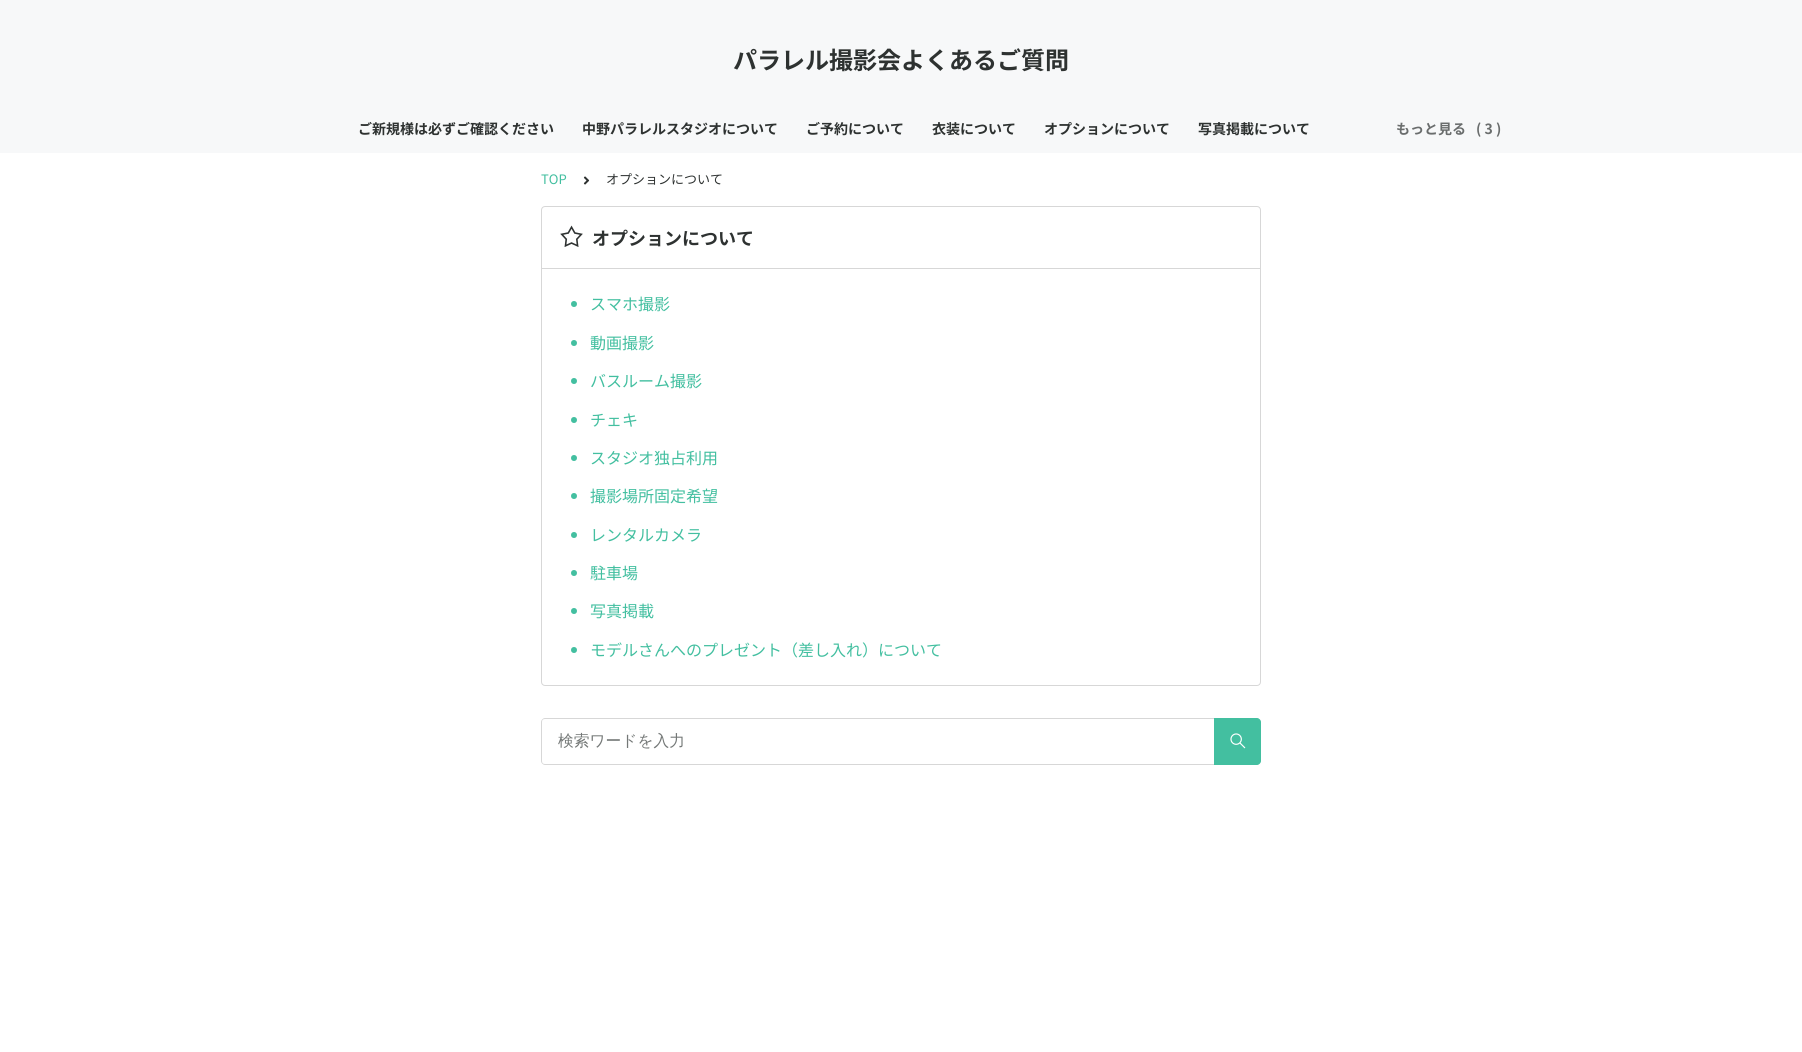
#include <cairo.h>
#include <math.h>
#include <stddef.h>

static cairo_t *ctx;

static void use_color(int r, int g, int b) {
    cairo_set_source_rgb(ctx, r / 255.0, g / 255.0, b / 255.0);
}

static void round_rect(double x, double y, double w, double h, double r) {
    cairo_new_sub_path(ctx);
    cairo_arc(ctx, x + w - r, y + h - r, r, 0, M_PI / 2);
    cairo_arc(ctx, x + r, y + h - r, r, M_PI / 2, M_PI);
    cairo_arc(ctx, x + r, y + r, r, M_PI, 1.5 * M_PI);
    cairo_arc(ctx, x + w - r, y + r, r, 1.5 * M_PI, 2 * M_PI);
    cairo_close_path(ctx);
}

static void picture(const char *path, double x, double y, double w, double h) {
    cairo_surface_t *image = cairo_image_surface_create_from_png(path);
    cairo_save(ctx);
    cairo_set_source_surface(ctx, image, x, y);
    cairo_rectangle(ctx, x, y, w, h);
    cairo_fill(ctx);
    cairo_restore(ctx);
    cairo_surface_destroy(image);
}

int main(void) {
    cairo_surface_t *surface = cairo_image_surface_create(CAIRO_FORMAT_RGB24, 1802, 1052);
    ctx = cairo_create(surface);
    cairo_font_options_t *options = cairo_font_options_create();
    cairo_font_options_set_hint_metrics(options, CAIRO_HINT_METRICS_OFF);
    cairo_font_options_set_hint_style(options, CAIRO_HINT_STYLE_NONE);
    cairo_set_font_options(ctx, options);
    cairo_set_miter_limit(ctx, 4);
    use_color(255, 255, 255);
    cairo_paint(ctx);
    use_color(247, 248, 249);
    cairo_rectangle(ctx, 0, 0, 1802, 153);
    cairo_fill(ctx);
    cairo_select_font_face(ctx, "Noto Sans JP", CAIRO_FONT_SLANT_NORMAL, CAIRO_FONT_WEIGHT_BOLD);
    cairo_set_font_size(ctx, 24);
    use_color(46, 50, 49);
    cairo_move_to(ctx, 733, 69);
    cairo_show_text(ctx, "パラレル撮影会よくあるご質問");
    cairo_set_font_size(ctx, 14);
    cairo_move_to(ctx, 358, 134);
    cairo_show_text(ctx, "ご新規様は必ずご確認ください");
    cairo_move_to(ctx, 582, 134);
    cairo_show_text(ctx, "中野パラレルスタジオについて");
    cairo_move_to(ctx, 806, 134);
    cairo_show_text(ctx, "ご予約について");
    cairo_move_to(ctx, 932, 134);
    cairo_show_text(ctx, "衣装について");
    cairo_move_to(ctx, 1044, 134);
    cairo_show_text(ctx, "オプションについて");
    cairo_move_to(ctx, 1198, 134);
    cairo_show_text(ctx, "写真掲載について");
    use_color(106, 109, 109);
    cairo_move_to(ctx, 1396, 134);
    cairo_show_text(ctx, "もっと見る");
    cairo_move_to(ctx, 1476, 134);
    cairo_show_text(ctx, "( 3 )");
    cairo_select_font_face(ctx, "Noto Sans JP", CAIRO_FONT_SLANT_NORMAL, CAIRO_FONT_WEIGHT_NORMAL);
    cairo_set_font_size(ctx, 13);
    use_color(67, 191, 160);
    cairo_move_to(ctx, 541, 184);
    cairo_show_text(ctx, "TOP");
    picture("img1.png", 583, 176, 7, 9);
    use_color(46, 50, 49);
    cairo_move_to(ctx, 606, 184);
    cairo_show_text(ctx, "オプションについて");
    round_rect(541.5, 206.5, 719, 479, 3.5);
    use_color(215, 215, 215);
    cairo_set_line_width(ctx, 1);
    cairo_stroke(ctx);
    cairo_rectangle(ctx, 542, 268, 718, 1);
    cairo_fill(ctx);
    picture("img2.png", 560, 225, 23, 22);
    cairo_select_font_face(ctx, "Noto Sans JP", CAIRO_FONT_SLANT_NORMAL, CAIRO_FONT_WEIGHT_BOLD);
    cairo_set_font_size(ctx, 18);
    use_color(46, 50, 49);
    cairo_move_to(ctx, 592, 245);
    cairo_show_text(ctx, "オプションについて");
    use_color(67, 191, 160);
    cairo_new_path(ctx);
    cairo_arc(ctx, 574, 304, 3, 0, 2 * M_PI);
    cairo_fill(ctx);
    cairo_select_font_face(ctx, "Noto Sans JP", CAIRO_FONT_SLANT_NORMAL, CAIRO_FONT_WEIGHT_NORMAL);
    cairo_set_font_size(ctx, 16);
    cairo_move_to(ctx, 590, 310);
    cairo_show_text(ctx, "スマホ撮影");
    cairo_new_path(ctx);
    cairo_arc(ctx, 574, 343, 3, 0, 2 * M_PI);
    cairo_fill(ctx);
    cairo_move_to(ctx, 590, 349);
    cairo_show_text(ctx, "動画撮影");
    cairo_new_path(ctx);
    cairo_arc(ctx, 574, 381, 3, 0, 2 * M_PI);
    cairo_fill(ctx);
    cairo_move_to(ctx, 590, 387);
    cairo_show_text(ctx, "バスルーム撮影");
    cairo_new_path(ctx);
    cairo_arc(ctx, 574, 420, 3, 0, 2 * M_PI);
    cairo_fill(ctx);
    cairo_move_to(ctx, 590, 426);
    cairo_show_text(ctx, "チェキ");
    cairo_new_path(ctx);
    cairo_arc(ctx, 574, 458, 3, 0, 2 * M_PI);
    cairo_fill(ctx);
    cairo_move_to(ctx, 590, 464);
    cairo_show_text(ctx, "スタジオ独占利用");
    cairo_new_path(ctx);
    cairo_arc(ctx, 574, 496, 3, 0, 2 * M_PI);
    cairo_fill(ctx);
    cairo_move_to(ctx, 590, 502);
    cairo_show_text(ctx, "撮影場所固定希望");
    cairo_new_path(ctx);
    cairo_arc(ctx, 574, 535, 3, 0, 2 * M_PI);
    cairo_fill(ctx);
    cairo_move_to(ctx, 590, 541);
    cairo_show_text(ctx, "レンタルカメラ");
    cairo_new_path(ctx);
    cairo_arc(ctx, 574, 573, 3, 0, 2 * M_PI);
    cairo_fill(ctx);
    cairo_move_to(ctx, 590, 579);
    cairo_show_text(ctx, "駐車場");
    cairo_new_path(ctx);
    cairo_arc(ctx, 574, 611, 3, 0, 2 * M_PI);
    cairo_fill(ctx);
    cairo_move_to(ctx, 590, 617);
    cairo_show_text(ctx, "写真掲載");
    cairo_new_path(ctx);
    cairo_arc(ctx, 574, 650, 3, 0, 2 * M_PI);
    cairo_fill(ctx);
    cairo_move_to(ctx, 590, 656);
    cairo_show_text(ctx, "モデルさんへのプレゼント（差し入れ）について");
    use_color(215, 215, 215);
    cairo_set_fill_rule(ctx, CAIRO_FILL_RULE_EVEN_ODD);
    cairo_new_path(ctx);
    cairo_move_to(ctx, 545, 718);
    cairo_line_to(ctx, 1214, 718);
    cairo_line_to(ctx, 1214, 765);
    cairo_line_to(ctx, 545, 765);
    cairo_curve_to(ctx, 543, 765, 541, 763, 541, 761);
    cairo_line_to(ctx, 541, 722);
    cairo_curve_to(ctx, 541, 720, 543, 718, 545, 718);
    cairo_close_path(ctx);
    cairo_move_to(ctx, 545, 719);
    cairo_line_to(ctx, 1214, 719);
    cairo_line_to(ctx, 1214, 764);
    cairo_line_to(ctx, 545, 764);
    cairo_curve_to(ctx, 543, 764, 542, 763, 542, 761);
    cairo_line_to(ctx, 542, 722);
    cairo_curve_to(ctx, 542, 720, 543, 719, 545, 719);
    cairo_close_path(ctx);
    cairo_fill(ctx);
    cairo_select_font_face(ctx, "WenQuanYi Zen Hei Medium", CAIRO_FONT_SLANT_NORMAL, CAIRO_FONT_WEIGHT_NORMAL);
    cairo_set_font_size(ctx, 15.75);
    use_color(116, 120, 119);
    cairo_move_to(ctx, 558, 746);
    cairo_show_text(ctx, "検索ワードを入力");
    use_color(67, 191, 160);
    cairo_new_path(ctx);
    cairo_move_to(ctx, 1214, 718);
    cairo_line_to(ctx, 1257, 718);
    cairo_curve_to(ctx, 1259, 718, 1261, 720, 1261, 722);
    cairo_line_to(ctx, 1261, 761);
    cairo_curve_to(ctx, 1261, 763, 1259, 765, 1257, 765);
    cairo_line_to(ctx, 1214, 765);
    cairo_close_path(ctx);
    cairo_fill(ctx);
    picture("img3.png", 1230, 733, 16, 16);
    cairo_surface_write_to_png(surface, "result.png");
    cairo_font_options_destroy(options);
    cairo_destroy(ctx);
    cairo_surface_destroy(surface);
    return 0;
}
